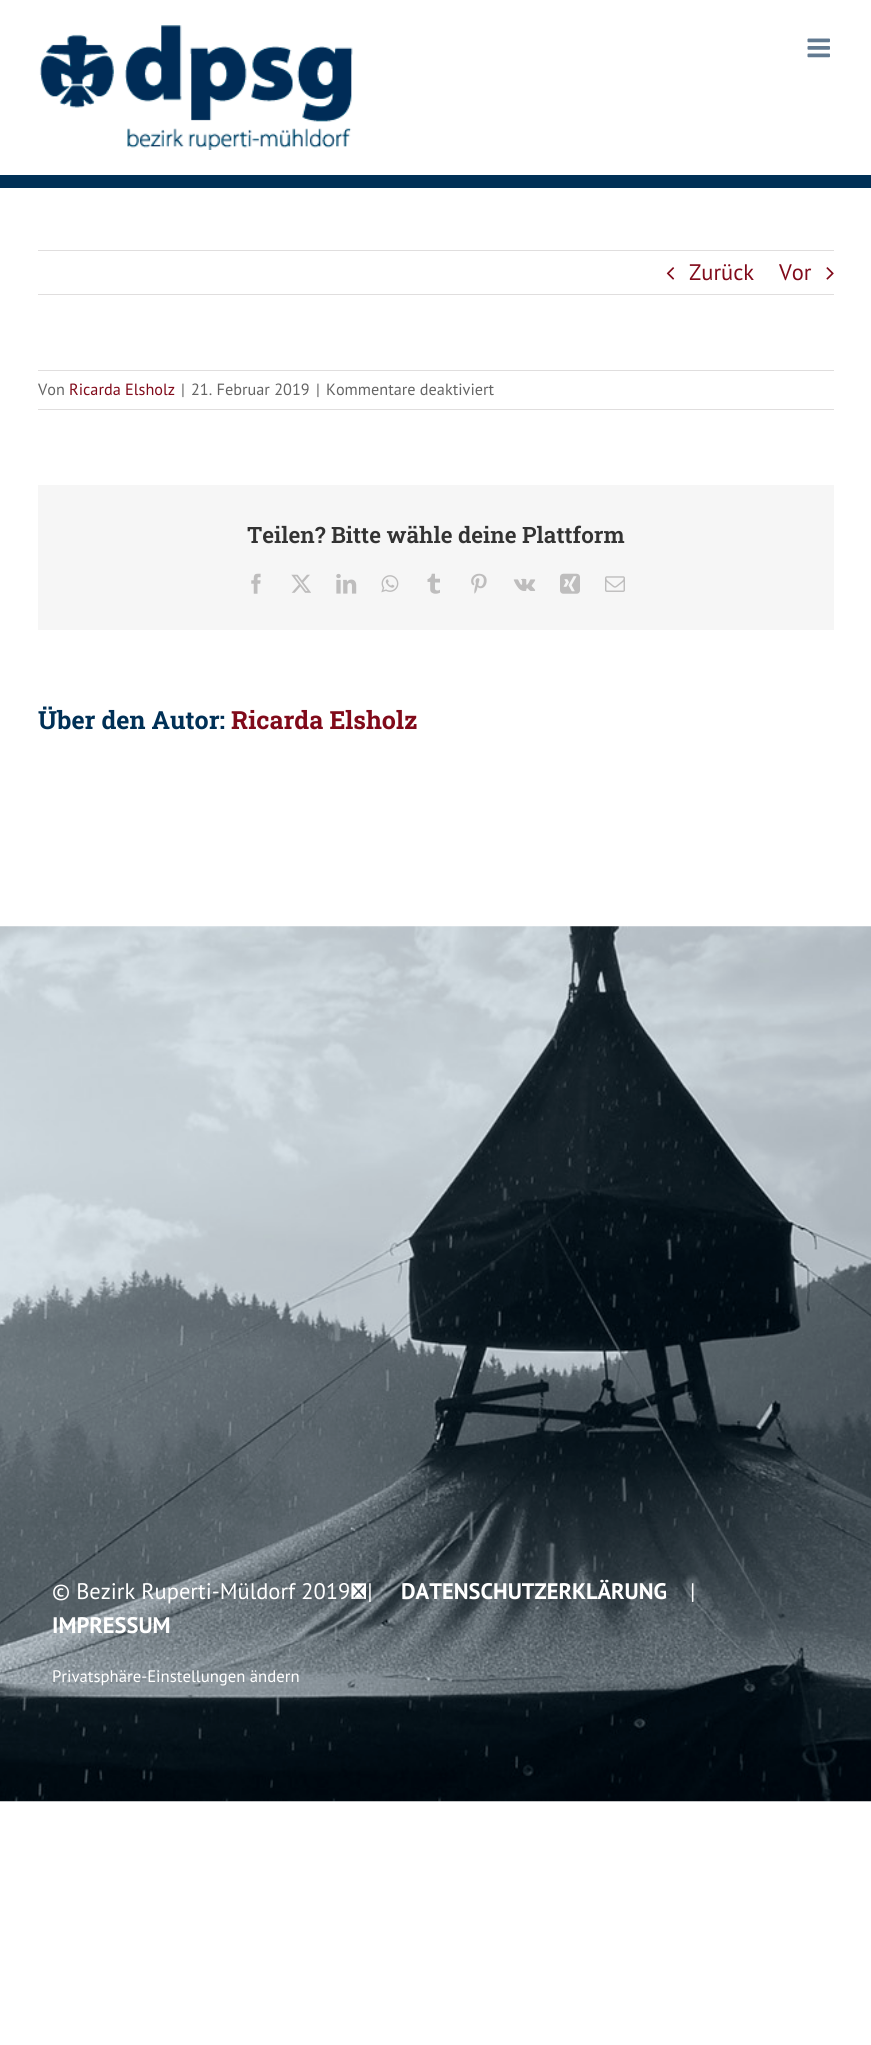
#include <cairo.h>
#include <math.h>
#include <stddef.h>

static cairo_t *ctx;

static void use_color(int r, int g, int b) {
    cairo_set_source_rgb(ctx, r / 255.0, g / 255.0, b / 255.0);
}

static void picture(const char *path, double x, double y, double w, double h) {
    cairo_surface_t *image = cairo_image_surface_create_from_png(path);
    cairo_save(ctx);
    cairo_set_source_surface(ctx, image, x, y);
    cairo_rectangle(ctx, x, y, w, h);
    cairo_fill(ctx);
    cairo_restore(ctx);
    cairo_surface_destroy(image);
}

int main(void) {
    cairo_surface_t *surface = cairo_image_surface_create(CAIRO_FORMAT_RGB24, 871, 2045);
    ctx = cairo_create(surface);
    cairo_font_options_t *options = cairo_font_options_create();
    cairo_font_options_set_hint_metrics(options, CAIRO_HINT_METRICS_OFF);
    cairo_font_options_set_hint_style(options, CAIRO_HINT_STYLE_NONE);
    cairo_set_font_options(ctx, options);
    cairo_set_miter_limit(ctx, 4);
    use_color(255, 255, 255);
    cairo_paint(ctx);
    picture("img1.png", 39, 25, 314, 125);
    picture("img2.png", 807, 38, 23, 20);
    use_color(0, 48, 86);
    cairo_rectangle(ctx, 0, 175, 871, 13);
    cairo_fill(ctx);
    use_color(224, 222, 222);
    cairo_rectangle(ctx, 38, 250, 796, 1);
    cairo_fill(ctx);
    cairo_rectangle(ctx, 38, 294, 796, 1);
    cairo_fill(ctx);
    picture("img3.png", 666, 267, 9, 13);
    cairo_select_font_face(ctx, "PT Sans", CAIRO_FONT_SLANT_NORMAL, CAIRO_FONT_WEIGHT_NORMAL);
    cairo_set_font_size(ctx, 22.5);
    use_color(129, 10, 26);
    cairo_move_to(ctx, 689, 280);
    cairo_show_text(ctx, "Zurück");
    cairo_move_to(ctx, 779, 280);
    cairo_show_text(ctx, "Vor");
    picture("img4.png", 826, 267, 8, 13);
    use_color(224, 222, 222);
    cairo_rectangle(ctx, 38, 370, 796, 1);
    cairo_fill(ctx);
    cairo_rectangle(ctx, 38, 409, 796, 1);
    cairo_fill(ctx);
    cairo_set_font_size(ctx, 16.25);
    use_color(100, 100, 100);
    cairo_move_to(ctx, 38, 395);
    cairo_show_text(ctx, "Von");
    use_color(129, 10, 26);
    cairo_move_to(ctx, 69, 395);
    cairo_show_text(ctx, "Ricarda Elsholz");
    use_color(100, 100, 100);
    cairo_move_to(ctx, 181, 395);
    cairo_show_text(ctx, "|");
    cairo_move_to(ctx, 191, 395);
    cairo_show_text(ctx, "21. Februar 2019");
    cairo_move_to(ctx, 316, 395);
    cairo_show_text(ctx, "|");
    cairo_move_to(ctx, 326, 395);
    cairo_show_text(ctx, "Kommentare deaktiviert");
    use_color(246, 246, 246);
    cairo_rectangle(ctx, 38, 485, 796, 145);
    cairo_fill(ctx);
    cairo_select_font_face(ctx, "Roboto Slab SemiBold", CAIRO_FONT_SLANT_NORMAL, CAIRO_FONT_WEIGHT_NORMAL);
    cairo_set_font_size(ctx, 22.5);
    use_color(51, 51, 51);
    cairo_move_to(ctx, 247, 543);
    cairo_show_text(ctx, "Teilen? Bitte wähle deine Plattform");
    picture("img5.png", 251, 573, 10, 21);
    picture("img6.png", 291, 574, 20, 19);
    picture("img7.png", 336, 573, 21, 21);
    picture("img8.png", 381, 575, 18, 18);
    picture("img9.png", 427, 573, 13, 21);
    picture("img10.png", 471, 573, 16, 21);
    picture("img11.png", 513, 578, 23, 13);
    picture("img12.png", 560, 573, 20, 21);
    picture("img13.png", 605, 576, 20, 16);
    cairo_select_font_face(ctx, "Roboto Slab", CAIRO_FONT_SLANT_NORMAL, CAIRO_FONT_WEIGHT_BOLD);
    cairo_set_font_size(ctx, 25);
    use_color(0, 48, 86);
    cairo_move_to(ctx, 38, 729);
    cairo_show_text(ctx, "Über den Autor:");
    use_color(129, 10, 26);
    cairo_move_to(ctx, 231, 729);
    cairo_show_text(ctx, "Ricarda Elsholz");
    picture("img14.png", 0, 926, 871, 876);
    cairo_select_font_face(ctx, "PT Sans", CAIRO_FONT_SLANT_NORMAL, CAIRO_FONT_WEIGHT_NORMAL);
    cairo_set_font_size(ctx, 22.5);
    use_color(255, 255, 255);
    cairo_move_to(ctx, 52, 1599);
    cairo_show_text(ctx, "© Bezirk Ruperti-Müldorf 2019 |");
    cairo_select_font_face(ctx, "PT Sans", CAIRO_FONT_SLANT_NORMAL, CAIRO_FONT_WEIGHT_BOLD);
    cairo_move_to(ctx, 401, 1599);
    cairo_show_text(ctx, "DATENSCHUTZERKLÄRUNG");
    cairo_select_font_face(ctx, "PT Sans", CAIRO_FONT_SLANT_NORMAL, CAIRO_FONT_WEIGHT_NORMAL);
    cairo_move_to(ctx, 690, 1599);
    cairo_show_text(ctx, "|");
    cairo_select_font_face(ctx, "PT Sans", CAIRO_FONT_SLANT_NORMAL, CAIRO_FONT_WEIGHT_BOLD);
    cairo_move_to(ctx, 52, 1633);
    cairo_show_text(ctx, "IMPRESSUM");
    cairo_select_font_face(ctx, "PT Sans", CAIRO_FONT_SLANT_NORMAL, CAIRO_FONT_WEIGHT_NORMAL);
    cairo_set_font_size(ctx, 16.7);
    cairo_move_to(ctx, 52, 1682);
    cairo_show_text(ctx, "Privatsphäre-Einstellungen ändern");
    cairo_surface_write_to_png(surface, "result.png");
    cairo_font_options_destroy(options);
    cairo_destroy(ctx);
    cairo_surface_destroy(surface);
    return 0;
}
